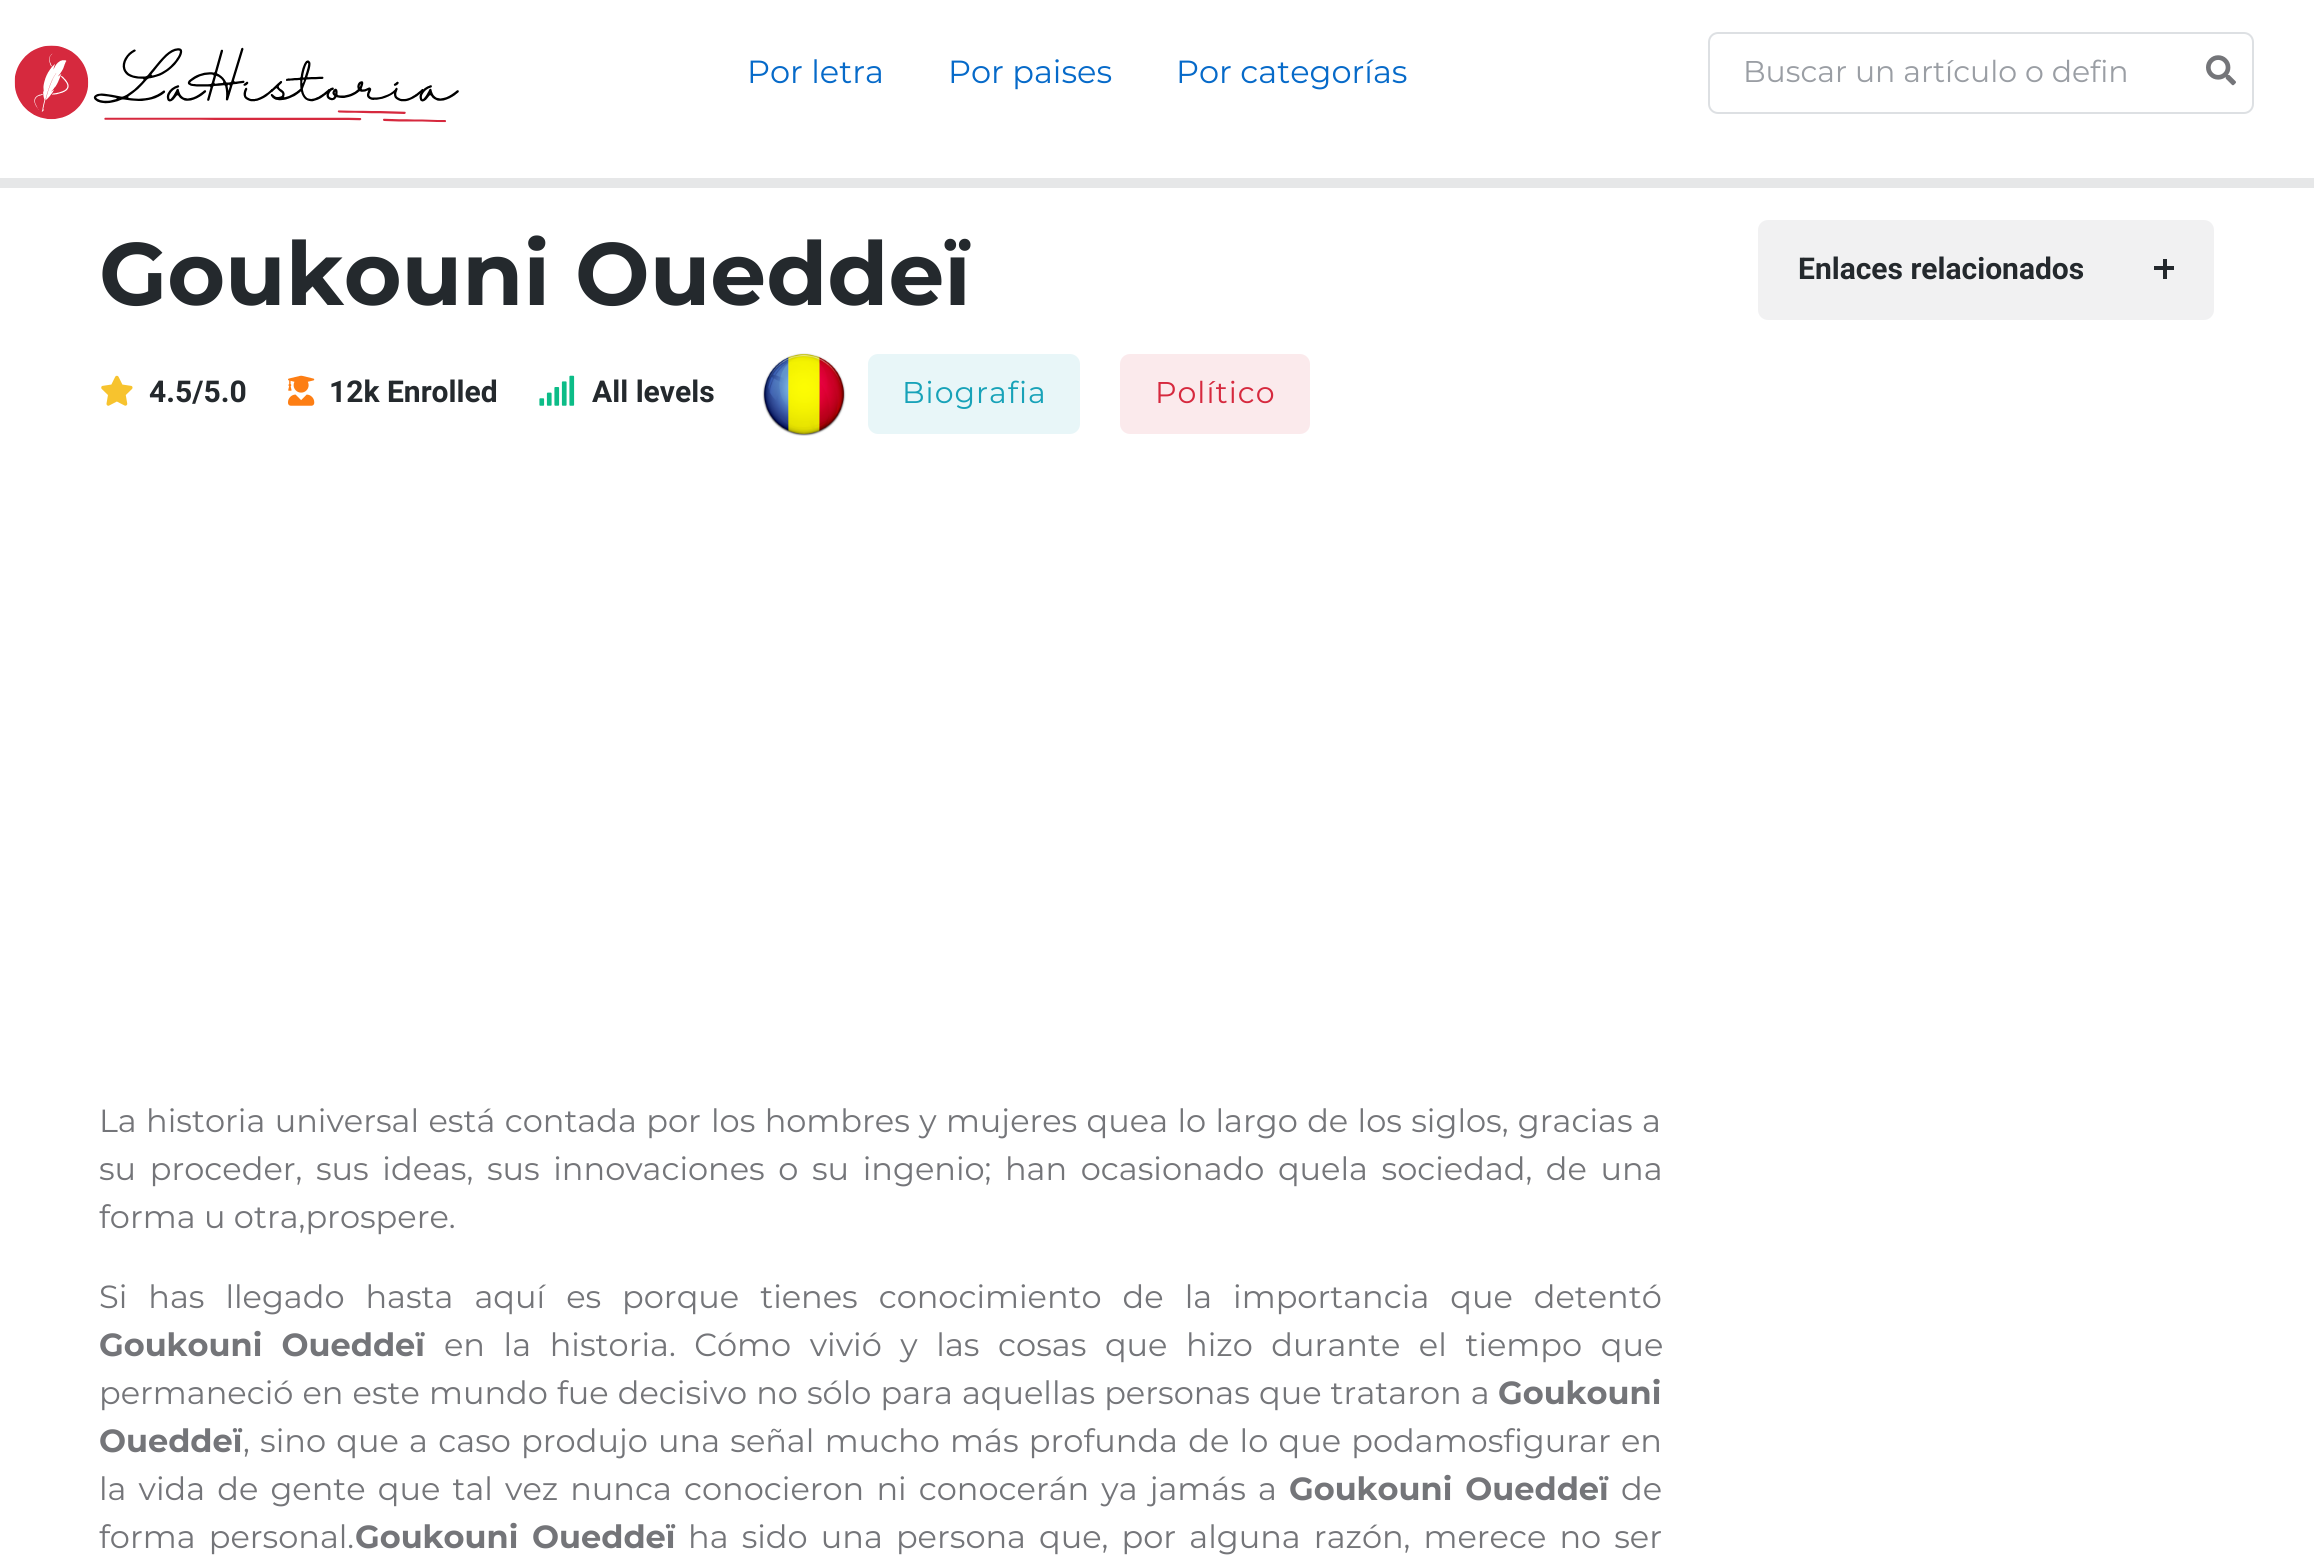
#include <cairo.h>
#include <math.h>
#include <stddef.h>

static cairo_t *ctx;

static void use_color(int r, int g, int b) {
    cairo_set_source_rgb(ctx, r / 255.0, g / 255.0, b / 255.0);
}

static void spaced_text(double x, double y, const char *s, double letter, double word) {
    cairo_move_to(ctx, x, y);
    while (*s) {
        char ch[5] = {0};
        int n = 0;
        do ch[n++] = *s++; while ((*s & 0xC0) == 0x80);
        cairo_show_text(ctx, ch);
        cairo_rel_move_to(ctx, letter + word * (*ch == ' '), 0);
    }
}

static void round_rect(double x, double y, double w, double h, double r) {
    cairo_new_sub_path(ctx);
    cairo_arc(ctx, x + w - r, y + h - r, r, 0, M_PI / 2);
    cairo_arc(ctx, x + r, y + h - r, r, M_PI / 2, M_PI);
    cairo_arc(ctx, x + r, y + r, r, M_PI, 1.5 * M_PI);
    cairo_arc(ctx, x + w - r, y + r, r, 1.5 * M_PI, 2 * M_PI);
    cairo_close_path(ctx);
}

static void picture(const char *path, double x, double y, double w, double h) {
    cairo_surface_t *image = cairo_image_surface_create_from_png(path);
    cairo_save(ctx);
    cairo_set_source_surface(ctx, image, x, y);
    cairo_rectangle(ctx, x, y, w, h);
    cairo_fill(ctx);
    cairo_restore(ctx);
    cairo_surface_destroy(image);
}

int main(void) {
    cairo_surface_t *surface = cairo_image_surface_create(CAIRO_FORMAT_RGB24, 2314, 1557);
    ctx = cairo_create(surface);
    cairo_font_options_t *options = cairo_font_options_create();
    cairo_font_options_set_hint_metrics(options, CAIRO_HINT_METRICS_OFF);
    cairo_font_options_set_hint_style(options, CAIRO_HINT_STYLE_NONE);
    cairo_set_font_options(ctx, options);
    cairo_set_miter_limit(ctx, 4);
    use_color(255, 255, 255);
    cairo_paint(ctx);
    picture("img1.png", 14, 45, 445, 78);
    cairo_select_font_face(ctx, "Montserrat", CAIRO_FONT_SLANT_NORMAL, CAIRO_FONT_WEIGHT_NORMAL);
    cairo_set_font_size(ctx, 32);
    use_color(6, 106, 201);
    cairo_move_to(ctx, 747, 83);
    cairo_show_text(ctx, "Por letra");
    cairo_move_to(ctx, 948, 83);
    cairo_show_text(ctx, "Por paises");
    cairo_move_to(ctx, 1176, 83);
    cairo_show_text(ctx, "Por categorías");
    round_rect(1709, 33, 544, 80, 9);
    use_color(221, 224, 227);
    cairo_stroke(ctx);
    cairo_set_font_size(ctx, 30);
    use_color(154, 158, 164);
    cairo_move_to(ctx, 1743, 82);
    cairo_show_text(ctx, "Buscar un artículo o defin");
    picture("img2.png", 2206, 55, 30, 31);
    use_color(230, 231, 232);
    cairo_rectangle(ctx, 0, 178, 2314, 10);
    cairo_fill(ctx);
    cairo_select_font_face(ctx, "Montserrat", CAIRO_FONT_SLANT_NORMAL, CAIRO_FONT_WEIGHT_BOLD);
    cairo_set_font_size(ctx, 88.4);
    use_color(36, 41, 45);
    cairo_move_to(ctx, 99, 305);
    cairo_show_text(ctx, "Goukouni Oueddeï");
    picture("img3.png", 101, 375, 32, 31);
    cairo_select_font_face(ctx, "Heebo", CAIRO_FONT_SLANT_NORMAL, CAIRO_FONT_WEIGHT_BOLD);
    cairo_set_font_size(ctx, 30);
    cairo_move_to(ctx, 149, 402);
    cairo_show_text(ctx, "4.5/5.0");
    picture("img4.png", 288, 375, 27, 31);
    cairo_move_to(ctx, 329, 402);
    cairo_show_text(ctx, "12k Enrolled");
    picture("img5.png", 539, 375, 36, 31);
    cairo_move_to(ctx, 592, 402);
    cairo_show_text(ctx, "All levels");
    picture("img6.png", 762, 353, 84, 83);
    use_color(232, 246, 248);
    round_rect(868, 354, 212, 80, 10);
    cairo_fill(ctx);
    cairo_select_font_face(ctx, "Montserrat", CAIRO_FONT_SLANT_NORMAL, CAIRO_FONT_WEIGHT_NORMAL);
    use_color(23, 162, 184);
    spaced_text(902, 403, "Biografia", 1, 0);
    use_color(251, 234, 236);
    round_rect(1120, 354, 190, 80, 10);
    cairo_fill(ctx);
    use_color(214, 41, 62);
    spaced_text(1155, 403, "Político", 1, 0);
    cairo_set_font_size(ctx, 32);
    use_color(116, 117, 121);
    spaced_text(99, 1132, "La historia universal está contada por", 0, 1);
    spaced_text(711, 1132, "los hombres y mujeres quea lo largo de los siglos, gracias a", 0, 1);
    spaced_text(99, 1180, "su proceder, sus ideas, sus innovaciones o su ingenio; han ocasionado quela sociedad, de una", 0, 5.25);
    cairo_move_to(ctx, 99, 1228);
    cairo_show_text(ctx, "forma u otra,prospere.");
    spaced_text(99, 1308, "Si has llegado hasta aquí es porque tienes conocimiento de la importancia que detentó", 0, 12.6);
    cairo_select_font_face(ctx, "Montserrat", CAIRO_FONT_SLANT_NORMAL, CAIRO_FONT_WEIGHT_BOLD);
    spaced_text(99, 1356, "Goukouni Oueddeï", 0, 10.25);
    cairo_select_font_face(ctx, "Montserrat", CAIRO_FONT_SLANT_NORMAL, CAIRO_FONT_WEIGHT_NORMAL);
    spaced_text(444, 1356, "en la historia. Cómo vivió y las cosas que hizo durante el tiempo que", 0, 10.25);
    spaced_text(99, 1404, "permaneció en este mundo fue decisivo no sólo para aquellas personas que trataron a", 0, 0.75);
    cairo_select_font_face(ctx, "Montserrat", CAIRO_FONT_SLANT_NORMAL, CAIRO_FONT_WEIGHT_BOLD);
    cairo_move_to(ctx, 1498, 1404);
    cairo_show_text(ctx, "Goukouni");
    cairo_move_to(ctx, 99, 1452);
    cairo_show_text(ctx, "Oueddeï");
    cairo_select_font_face(ctx, "Montserrat", CAIRO_FONT_SLANT_NORMAL, CAIRO_FONT_WEIGHT_NORMAL);
    spaced_text(243, 1452, ", sino que a caso produjo una señal mucho más profunda de lo que podamosfigurar en", 0, 1.9);
    spaced_text(99, 1500, "la vida de gente que tal vez nunca conocieron ni conocerán ya jamás a", 0, 3.75);
    cairo_select_font_face(ctx, "Montserrat", CAIRO_FONT_SLANT_NORMAL, CAIRO_FONT_WEIGHT_BOLD);
    spaced_text(1289, 1500, "Goukouni Oueddeï", 0, 4);
    cairo_select_font_face(ctx, "Montserrat", CAIRO_FONT_SLANT_NORMAL, CAIRO_FONT_WEIGHT_NORMAL);
    cairo_move_to(ctx, 1621, 1500);
    cairo_show_text(ctx, "de");
    spaced_text(99, 1548, "forma personal.", 0, 4.75);
    cairo_select_font_face(ctx, "Montserrat", CAIRO_FONT_SLANT_NORMAL, CAIRO_FONT_WEIGHT_BOLD);
    spaced_text(355, 1548, "Goukouni Oueddeï", 0, 4.75);
    cairo_select_font_face(ctx, "Montserrat", CAIRO_FONT_SLANT_NORMAL, CAIRO_FONT_WEIGHT_NORMAL);
    spaced_text(688, 1548, "ha sido una persona que, por alguna razón, merece no ser", 0, 4.75);
    use_color(241, 241, 242);
    round_rect(1758, 220, 456, 100, 10);
    cairo_fill(ctx);
    cairo_select_font_face(ctx, "Roboto", CAIRO_FONT_SLANT_NORMAL, CAIRO_FONT_WEIGHT_BOLD);
    cairo_set_font_size(ctx, 30);
    use_color(36, 41, 45);
    cairo_move_to(ctx, 1798, 279);
    cairo_show_text(ctx, "Enlaces relacionados");
    cairo_rectangle(ctx, 2154, 266, 20, 4);
    cairo_fill(ctx);
    cairo_rectangle(ctx, 2163, 259, 4, 20);
    cairo_fill(ctx);
    cairo_surface_write_to_png(surface, "result.png");
    cairo_font_options_destroy(options);
    cairo_destroy(ctx);
    cairo_surface_destroy(surface);
    return 0;
}
